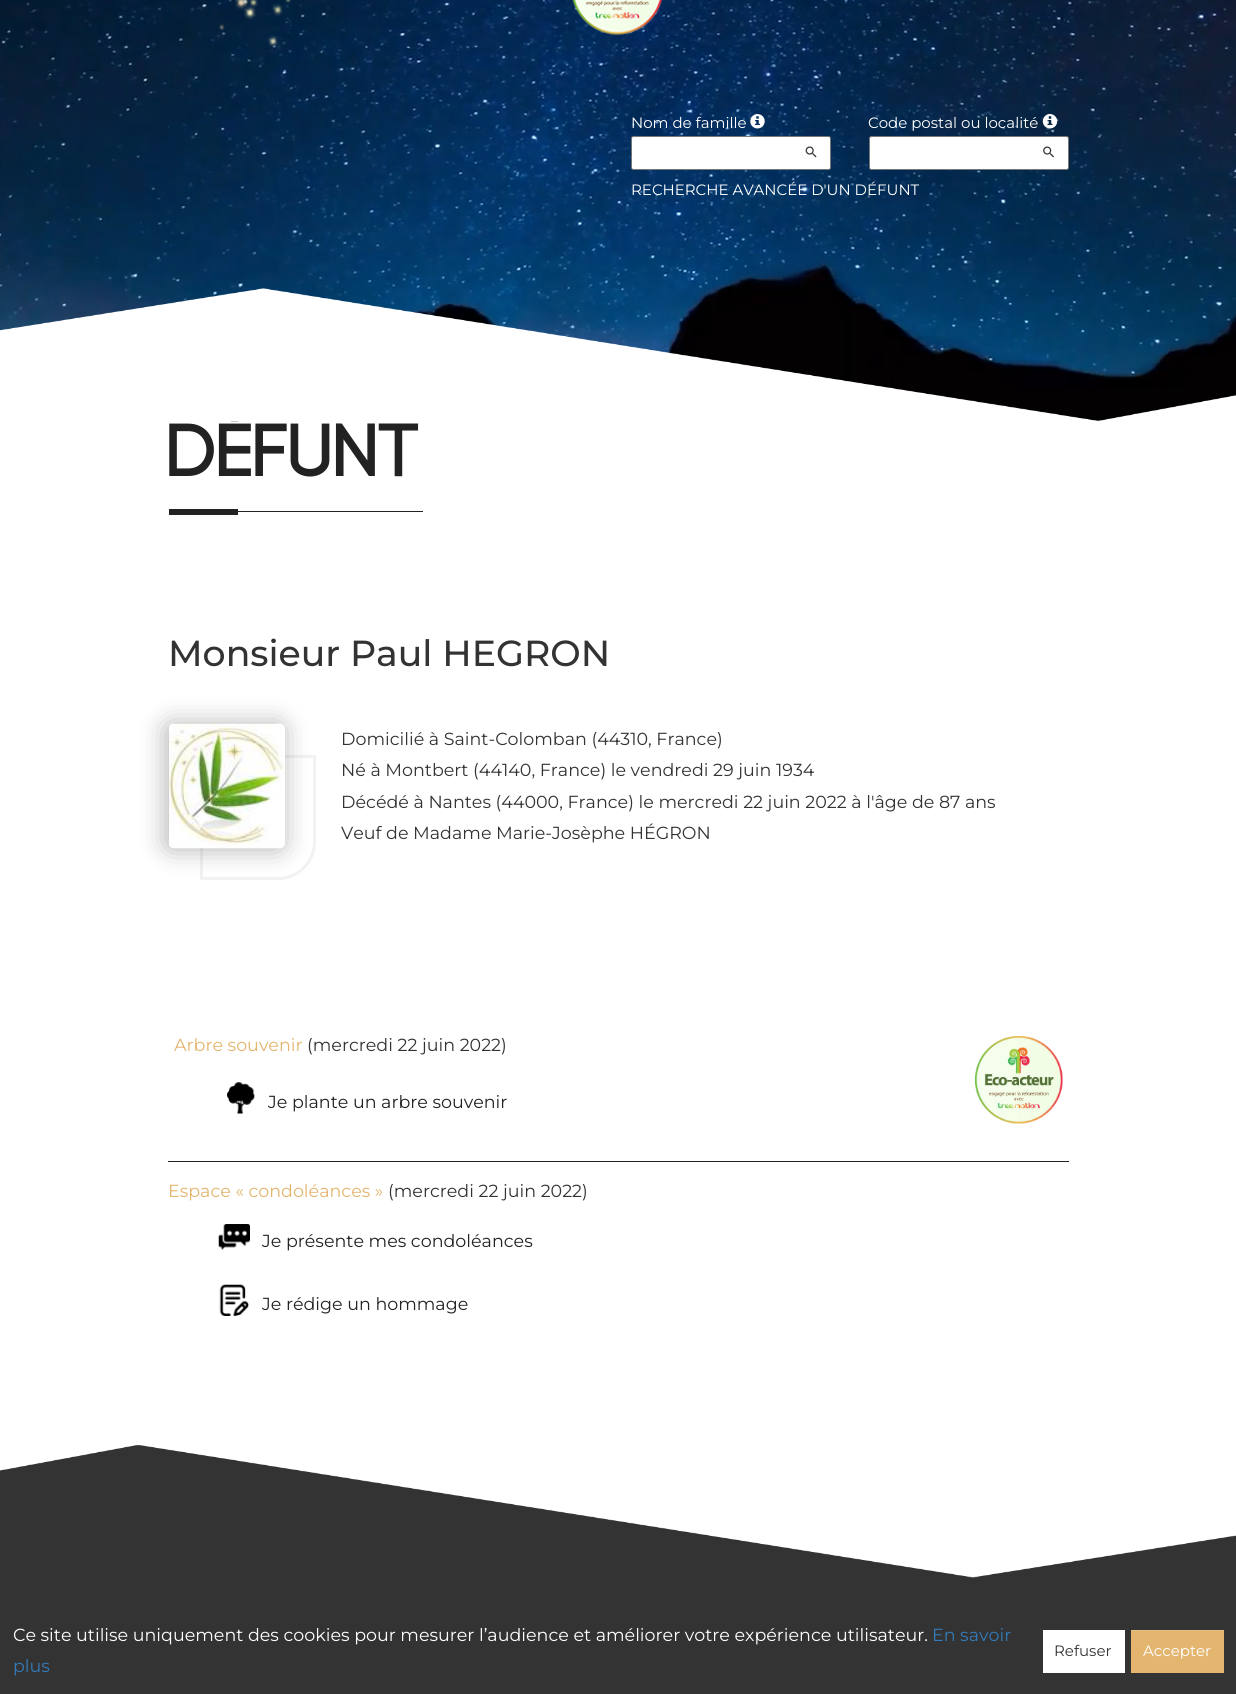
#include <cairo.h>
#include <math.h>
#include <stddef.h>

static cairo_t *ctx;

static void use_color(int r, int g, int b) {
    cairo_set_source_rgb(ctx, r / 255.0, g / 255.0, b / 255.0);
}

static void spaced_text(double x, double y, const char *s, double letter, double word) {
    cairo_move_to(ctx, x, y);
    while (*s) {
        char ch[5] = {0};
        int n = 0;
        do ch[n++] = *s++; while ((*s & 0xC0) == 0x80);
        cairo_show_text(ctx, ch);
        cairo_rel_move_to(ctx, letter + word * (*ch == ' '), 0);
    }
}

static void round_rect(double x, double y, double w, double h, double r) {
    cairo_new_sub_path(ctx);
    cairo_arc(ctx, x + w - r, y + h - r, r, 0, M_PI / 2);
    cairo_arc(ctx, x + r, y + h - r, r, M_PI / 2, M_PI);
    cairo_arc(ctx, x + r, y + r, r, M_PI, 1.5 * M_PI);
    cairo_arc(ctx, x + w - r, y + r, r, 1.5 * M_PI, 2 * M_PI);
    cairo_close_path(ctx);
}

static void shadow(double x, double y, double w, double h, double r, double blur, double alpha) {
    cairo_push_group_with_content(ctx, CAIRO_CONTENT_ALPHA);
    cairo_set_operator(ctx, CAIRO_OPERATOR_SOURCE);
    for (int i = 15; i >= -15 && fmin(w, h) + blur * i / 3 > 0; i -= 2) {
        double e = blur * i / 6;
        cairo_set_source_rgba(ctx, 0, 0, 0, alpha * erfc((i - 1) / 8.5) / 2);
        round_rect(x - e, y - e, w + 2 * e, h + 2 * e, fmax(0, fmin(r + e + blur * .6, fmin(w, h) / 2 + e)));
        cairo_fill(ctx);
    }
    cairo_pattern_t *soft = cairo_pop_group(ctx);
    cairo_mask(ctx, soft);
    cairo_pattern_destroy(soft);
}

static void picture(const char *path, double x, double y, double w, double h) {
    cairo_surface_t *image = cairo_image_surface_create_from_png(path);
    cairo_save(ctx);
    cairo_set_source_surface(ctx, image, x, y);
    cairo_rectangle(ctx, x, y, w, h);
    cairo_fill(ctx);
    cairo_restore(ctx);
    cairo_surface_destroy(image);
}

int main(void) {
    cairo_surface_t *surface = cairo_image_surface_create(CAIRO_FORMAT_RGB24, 1236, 1694);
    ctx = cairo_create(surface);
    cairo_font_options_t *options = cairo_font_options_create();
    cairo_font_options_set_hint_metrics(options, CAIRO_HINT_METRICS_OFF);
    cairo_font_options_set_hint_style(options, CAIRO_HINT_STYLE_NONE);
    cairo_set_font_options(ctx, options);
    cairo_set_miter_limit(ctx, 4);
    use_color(255, 255, 255);
    cairo_paint(ctx);
    picture("img1.png", 0, 0, 1236, 421);
    picture("img2.png", 219, 0, 444, 47);
    cairo_select_font_face(ctx, "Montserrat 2 Thin", CAIRO_FONT_SLANT_NORMAL, CAIRO_FONT_WEIGHT_NORMAL);
    cairo_set_font_size(ctx, 15);
    use_color(255, 255, 255);
    cairo_move_to(ctx, 631, 128);
    cairo_show_text(ctx, "Nom de famille");
    picture("img3.png", 750, 114, 15, 15);
    round_rect(631.5, 136.5, 199, 33, 2);
    cairo_fill_preserve(ctx);
    use_color(118, 118, 118);
    cairo_set_line_width(ctx, 1);
    cairo_stroke(ctx);
    picture("img4.png", 805, 146, 12, 12);
    use_color(255, 255, 255);
    cairo_move_to(ctx, 868, 128);
    cairo_show_text(ctx, "Code postal ou localité");
    picture("img5.png", 1042, 114, 16, 15);
    round_rect(869.5, 136.5, 199, 33, 2);
    cairo_fill_preserve(ctx);
    use_color(118, 118, 118);
    cairo_stroke(ctx);
    picture("img6.png", 1043, 146, 11, 12);
    use_color(255, 255, 255);
    cairo_move_to(ctx, 631, 195);
    cairo_show_text(ctx, "RECHERCHE AVANCÉE D'UN DÉFUNT");
    cairo_select_font_face(ctx, "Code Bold", CAIRO_FONT_SLANT_NORMAL, CAIRO_FONT_WEIGHT_BOLD);
    cairo_set_font_size(ctx, 75);
    use_color(34, 34, 34);
    spaced_text(168, 476, "Défunt", 1.25, 0);
    cairo_rectangle(ctx, 169, 509, 69, 6);
    cairo_fill(ctx);
    cairo_rectangle(ctx, 238, 511, 185, 1);
    cairo_fill(ctx);
    picture("img7.png", 0, 288, 1236, 133);
    cairo_select_font_face(ctx, "Montserrat Thin", CAIRO_FONT_SLANT_NORMAL, CAIRO_FONT_WEIGHT_NORMAL);
    cairo_set_font_size(ctx, 36.25);
    use_color(51, 51, 51);
    cairo_move_to(ctx, 168, 666);
    cairo_show_text(ctx, "Monsieur Paul HEGRON");
    cairo_new_path(ctx);
    cairo_move_to(ctx, 201.5, 756.5);
    cairo_line_to(ctx, 314.5, 756.5);
    cairo_line_to(ctx, 314.5, 842);
    cairo_curve_to(ctx, 314.5, 862, 298, 878.5, 278, 878.5);
    cairo_line_to(ctx, 201.5, 878.5);
    cairo_close_path(ctx);
    use_color(243, 242, 242);
    cairo_set_line_width(ctx, 3);
    cairo_stroke(ctx);
    use_color(0, 0, 0);
    shadow(166, 724, 117, 125, 5, 13, 0.3);
    picture("img8.png", 169, 723, 116, 126);
    cairo_select_font_face(ctx, "Montserrat 2 Thin", CAIRO_FONT_SLANT_NORMAL, CAIRO_FONT_WEIGHT_NORMAL);
    cairo_set_font_size(ctx, 17.5);
    use_color(51, 51, 51);
    cairo_move_to(ctx, 341, 745);
    cairo_show_text(ctx, "Domicilié à Saint-Colomban (44310, France)");
    cairo_move_to(ctx, 341, 776);
    cairo_show_text(ctx, "Né à Montbert (44140, France) le vendredi 29 juin 1934");
    cairo_move_to(ctx, 341, 808);
    cairo_show_text(ctx, "Décédé à Nantes (44000, France) le mercredi 22 juin 2022 à l'âge de 87 ans");
    cairo_move_to(ctx, 341, 839);
    cairo_show_text(ctx, "Veuf de Madame Marie-Josèphe HÉGRON");
    use_color(228, 181, 111);
    cairo_move_to(ctx, 174, 1051);
    cairo_show_text(ctx, "Arbre souvenir");
    use_color(51, 51, 51);
    cairo_move_to(ctx, 307, 1051);
    cairo_show_text(ctx, "(mercredi 22 juin 2022)");
    picture("img9.png", 975, 1036, 88, 88);
    picture("img10.png", 227, 1082, 28, 32);
    use_color(34, 34, 34);
    cairo_move_to(ctx, 268, 1108);
    cairo_show_text(ctx, "Je plante un arbre souvenir");
    cairo_rectangle(ctx, 168, 1161, 901, 1);
    cairo_fill(ctx);
    use_color(228, 181, 111);
    cairo_move_to(ctx, 168, 1197);
    cairo_show_text(ctx, "Espace « condoléances »");
    use_color(51, 51, 51);
    cairo_move_to(ctx, 388, 1197);
    cairo_show_text(ctx, "(mercredi 22 juin 2022)");
    picture("img11.png", 218, 1224, 32, 26);
    use_color(34, 34, 34);
    cairo_move_to(ctx, 262, 1247);
    cairo_show_text(ctx, "Je présente mes condoléances");
    picture("img12.png", 219, 1284, 30, 32);
    cairo_move_to(ctx, 262, 1310);
    cairo_show_text(ctx, "Je rédige un hommage");
    use_color(51, 51, 51);
    cairo_rectangle(ctx, 0, 1445, 1236, 249);
    cairo_fill(ctx);
    picture("img13.png", 0, 1445, 1236, 133);
    use_color(255, 255, 255);
    cairo_move_to(ctx, 13, 1641);
    cairo_show_text(ctx, "Ce site utilise uniquement des cookies pour mesurer l’audience et améliorer votre expérience utilisateur.");
    use_color(51, 122, 183);
    cairo_move_to(ctx, 932, 1641);
    cairo_show_text(ctx, "En savoir");
    cairo_move_to(ctx, 13, 1672);
    cairo_show_text(ctx, "plus");
    use_color(255, 255, 255);
    cairo_rectangle(ctx, 1043, 1630, 82, 43);
    cairo_fill(ctx);
    cairo_set_font_size(ctx, 15);
    use_color(51, 51, 51);
    cairo_move_to(ctx, 1054, 1656);
    cairo_show_text(ctx, "Refuser");
    use_color(228, 181, 111);
    cairo_rectangle(ctx, 1131, 1631, 93, 42);
    cairo_fill(ctx);
    use_color(232, 192, 133);
    cairo_rectangle(ctx, 1131, 1630, 93, 1);
    cairo_fill(ctx);
    use_color(255, 255, 255);
    cairo_move_to(ctx, 1143, 1656);
    cairo_show_text(ctx, "Accepter");
    cairo_surface_write_to_png(surface, "result.png");
    cairo_font_options_destroy(options);
    cairo_destroy(ctx);
    cairo_surface_destroy(surface);
    return 0;
}
